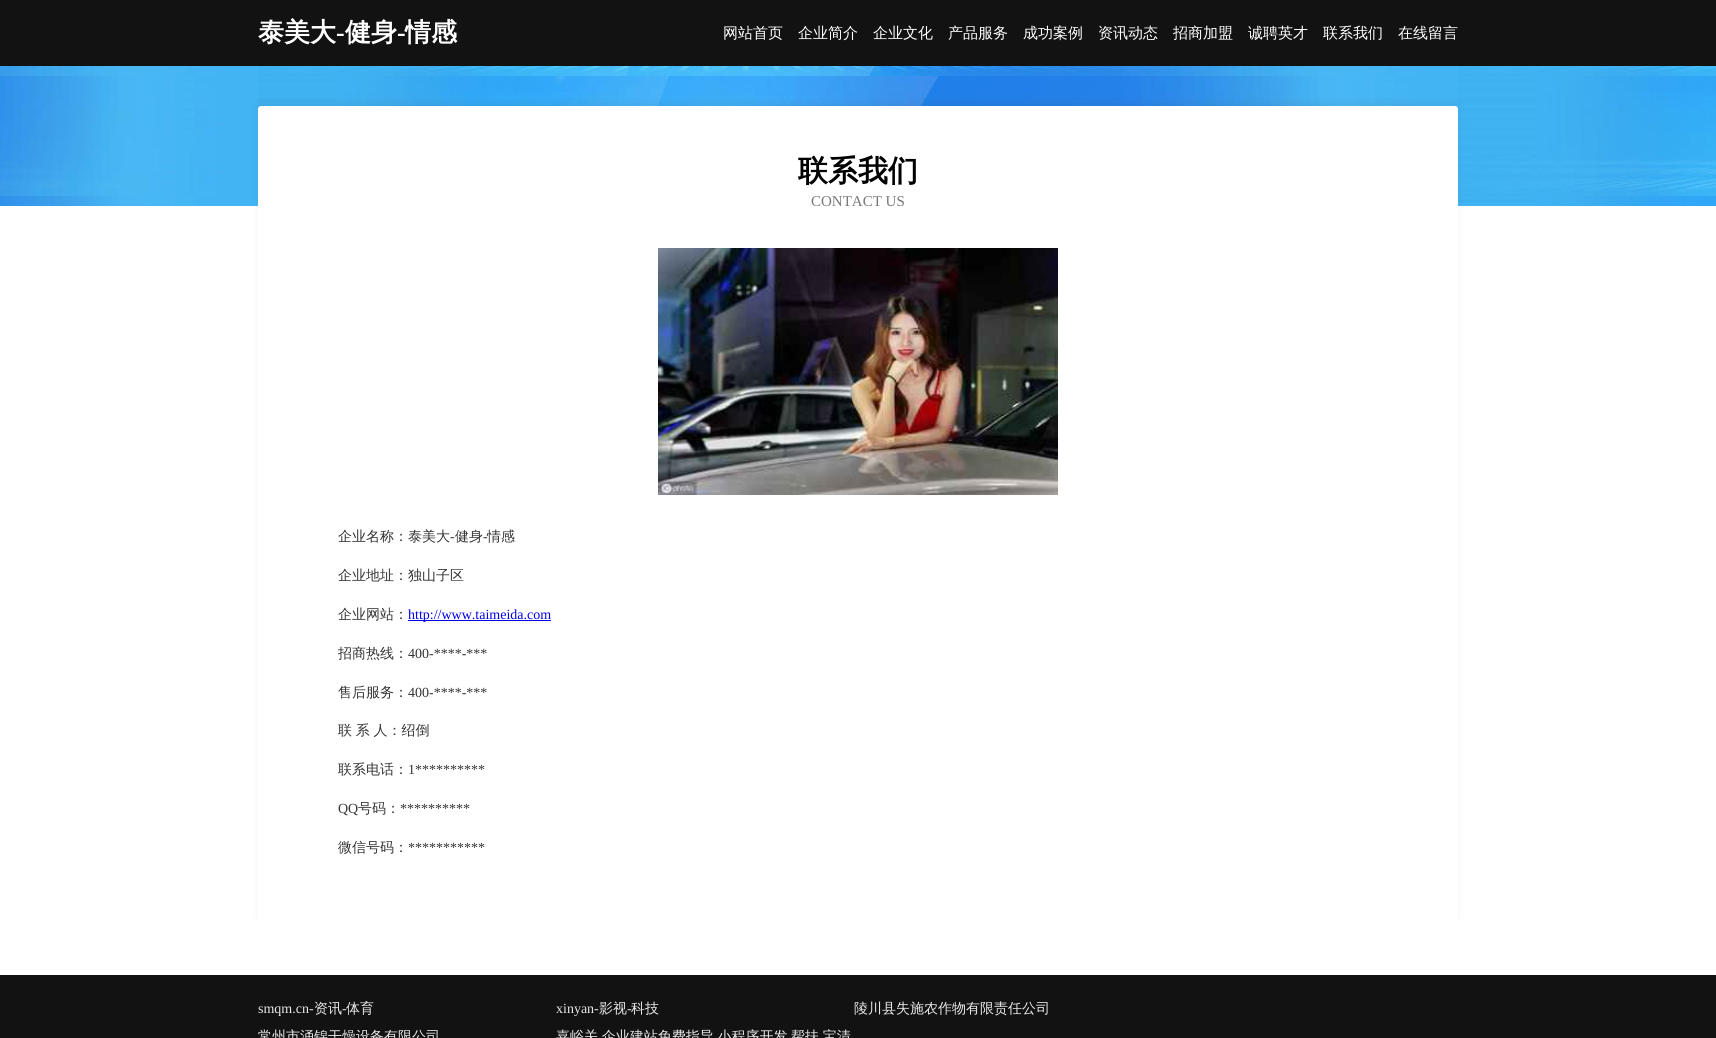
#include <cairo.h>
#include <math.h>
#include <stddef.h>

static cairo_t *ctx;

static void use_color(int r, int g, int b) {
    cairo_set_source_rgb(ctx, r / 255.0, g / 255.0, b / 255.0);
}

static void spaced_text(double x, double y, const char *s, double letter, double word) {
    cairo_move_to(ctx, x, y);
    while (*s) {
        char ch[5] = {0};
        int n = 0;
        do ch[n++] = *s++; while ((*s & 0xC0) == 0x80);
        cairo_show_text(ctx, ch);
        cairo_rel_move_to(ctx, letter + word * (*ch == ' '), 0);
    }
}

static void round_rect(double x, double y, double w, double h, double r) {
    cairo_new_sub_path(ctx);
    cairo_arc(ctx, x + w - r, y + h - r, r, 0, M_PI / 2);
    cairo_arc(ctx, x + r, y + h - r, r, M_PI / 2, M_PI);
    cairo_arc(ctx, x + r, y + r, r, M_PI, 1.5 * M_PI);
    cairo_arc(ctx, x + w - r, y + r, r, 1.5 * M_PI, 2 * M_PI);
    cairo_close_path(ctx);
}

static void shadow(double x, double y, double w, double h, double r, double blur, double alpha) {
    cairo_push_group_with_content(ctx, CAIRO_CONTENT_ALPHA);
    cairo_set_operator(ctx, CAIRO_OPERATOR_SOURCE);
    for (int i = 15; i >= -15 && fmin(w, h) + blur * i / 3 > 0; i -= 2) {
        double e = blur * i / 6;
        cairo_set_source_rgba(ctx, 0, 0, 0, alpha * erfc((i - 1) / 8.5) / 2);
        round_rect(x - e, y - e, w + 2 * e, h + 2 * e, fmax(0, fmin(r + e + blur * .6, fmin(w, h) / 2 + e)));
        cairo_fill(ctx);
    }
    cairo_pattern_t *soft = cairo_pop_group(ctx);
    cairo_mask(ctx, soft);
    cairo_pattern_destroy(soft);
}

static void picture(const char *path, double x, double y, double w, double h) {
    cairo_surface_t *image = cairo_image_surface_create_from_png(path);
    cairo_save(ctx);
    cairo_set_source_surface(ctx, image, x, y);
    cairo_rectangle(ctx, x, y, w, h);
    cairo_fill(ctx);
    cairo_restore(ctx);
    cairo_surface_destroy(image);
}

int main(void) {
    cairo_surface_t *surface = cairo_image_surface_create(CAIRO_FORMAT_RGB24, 1716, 1038);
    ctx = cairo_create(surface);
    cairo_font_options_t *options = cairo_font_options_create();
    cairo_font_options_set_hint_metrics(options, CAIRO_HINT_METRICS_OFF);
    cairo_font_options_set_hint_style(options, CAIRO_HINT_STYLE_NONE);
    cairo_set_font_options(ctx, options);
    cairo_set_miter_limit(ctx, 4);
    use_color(255, 255, 255);
    cairo_paint(ctx);
    use_color(18, 18, 18);
    cairo_rectangle(ctx, 0, 0, 1716, 66);
    cairo_fill(ctx);
    cairo_select_font_face(ctx, "WenQuanYi Zen Hei", CAIRO_FONT_SLANT_NORMAL, CAIRO_FONT_WEIGHT_BOLD);
    cairo_set_font_size(ctx, 26);
    use_color(255, 255, 255);
    cairo_move_to(ctx, 258, 41);
    cairo_show_text(ctx, "泰美大");
    cairo_select_font_face(ctx, "Liberation Serif", CAIRO_FONT_SLANT_NORMAL, CAIRO_FONT_WEIGHT_BOLD);
    cairo_move_to(ctx, 336, 41);
    cairo_show_text(ctx, "-");
    cairo_select_font_face(ctx, "WenQuanYi Zen Hei", CAIRO_FONT_SLANT_NORMAL, CAIRO_FONT_WEIGHT_BOLD);
    cairo_move_to(ctx, 345, 41);
    cairo_show_text(ctx, "健身");
    cairo_select_font_face(ctx, "Liberation Serif", CAIRO_FONT_SLANT_NORMAL, CAIRO_FONT_WEIGHT_BOLD);
    cairo_move_to(ctx, 397, 41);
    cairo_show_text(ctx, "-");
    cairo_select_font_face(ctx, "WenQuanYi Zen Hei", CAIRO_FONT_SLANT_NORMAL, CAIRO_FONT_WEIGHT_BOLD);
    cairo_move_to(ctx, 405, 41);
    cairo_show_text(ctx, "情感");
    cairo_select_font_face(ctx, "WenQuanYi Zen Hei Medium", CAIRO_FONT_SLANT_NORMAL, CAIRO_FONT_WEIGHT_NORMAL);
    cairo_set_font_size(ctx, 15);
    cairo_move_to(ctx, 723, 38);
    cairo_show_text(ctx, "网站首页");
    cairo_move_to(ctx, 798, 38);
    cairo_show_text(ctx, "企业简介");
    cairo_move_to(ctx, 873, 38);
    cairo_show_text(ctx, "企业文化");
    cairo_move_to(ctx, 948, 38);
    cairo_show_text(ctx, "产品服务");
    cairo_move_to(ctx, 1023, 38);
    cairo_show_text(ctx, "成功案例");
    cairo_move_to(ctx, 1098, 38);
    cairo_show_text(ctx, "资讯动态");
    cairo_move_to(ctx, 1173, 38);
    cairo_show_text(ctx, "招商加盟");
    cairo_move_to(ctx, 1248, 38);
    cairo_show_text(ctx, "诚聘英才");
    cairo_move_to(ctx, 1323, 38);
    cairo_show_text(ctx, "联系我们");
    cairo_move_to(ctx, 1398, 38);
    cairo_show_text(ctx, "在线留言");
    picture("img1.png", 0, 66, 1716, 140);
    use_color(66, 66, 66);
    shadow(259, 102, 1198, 817, 2, 4.5, 0.09);
    use_color(255, 255, 255);
    round_rect(258, 106, 1200, 819, 3);
    cairo_fill(ctx);
    cairo_select_font_face(ctx, "WenQuanYi Zen Hei", CAIRO_FONT_SLANT_NORMAL, CAIRO_FONT_WEIGHT_BOLD);
    cairo_set_font_size(ctx, 30);
    use_color(0, 0, 0);
    cairo_move_to(ctx, 798, 181);
    cairo_show_text(ctx, "联系我们");
    cairo_select_font_face(ctx, "Liberation Serif", CAIRO_FONT_SLANT_NORMAL, CAIRO_FONT_WEIGHT_NORMAL);
    cairo_set_font_size(ctx, 15);
    use_color(120, 120, 120);
    cairo_move_to(ctx, 811, 206);
    cairo_show_text(ctx, "CONTACT US");
    picture("img2.png", 658, 248, 400, 247);
    cairo_select_font_face(ctx, "WenQuanYi Zen Hei Medium", CAIRO_FONT_SLANT_NORMAL, CAIRO_FONT_WEIGHT_NORMAL);
    cairo_set_font_size(ctx, 14);
    use_color(52, 52, 52);
    cairo_move_to(ctx, 338, 541);
    cairo_show_text(ctx, "企业名称：泰美大");
    cairo_select_font_face(ctx, "Liberation Serif", CAIRO_FONT_SLANT_NORMAL, CAIRO_FONT_WEIGHT_NORMAL);
    cairo_move_to(ctx, 450, 541);
    cairo_show_text(ctx, "-");
    cairo_select_font_face(ctx, "WenQuanYi Zen Hei Medium", CAIRO_FONT_SLANT_NORMAL, CAIRO_FONT_WEIGHT_NORMAL);
    cairo_move_to(ctx, 455, 541);
    cairo_show_text(ctx, "健身");
    cairo_select_font_face(ctx, "Liberation Serif", CAIRO_FONT_SLANT_NORMAL, CAIRO_FONT_WEIGHT_NORMAL);
    cairo_move_to(ctx, 483, 541);
    cairo_show_text(ctx, "-");
    cairo_select_font_face(ctx, "WenQuanYi Zen Hei Medium", CAIRO_FONT_SLANT_NORMAL, CAIRO_FONT_WEIGHT_NORMAL);
    cairo_move_to(ctx, 487, 541);
    cairo_show_text(ctx, "情感");
    cairo_move_to(ctx, 338, 580);
    cairo_show_text(ctx, "企业地址：独山子区");
    cairo_move_to(ctx, 338, 619);
    cairo_show_text(ctx, "企业网站：");
    use_color(0, 0, 238);
    cairo_rectangle(ctx, 408, 620, 143, 1);
    cairo_fill(ctx);
    cairo_select_font_face(ctx, "Liberation Serif", CAIRO_FONT_SLANT_NORMAL, CAIRO_FONT_WEIGHT_NORMAL);
    cairo_move_to(ctx, 408, 619);
    cairo_show_text(ctx, "http://www.taimeida.com");
    cairo_select_font_face(ctx, "WenQuanYi Zen Hei Medium", CAIRO_FONT_SLANT_NORMAL, CAIRO_FONT_WEIGHT_NORMAL);
    use_color(52, 52, 52);
    cairo_move_to(ctx, 338, 658);
    cairo_show_text(ctx, "招商热线：");
    cairo_select_font_face(ctx, "Liberation Serif", CAIRO_FONT_SLANT_NORMAL, CAIRO_FONT_WEIGHT_NORMAL);
    cairo_move_to(ctx, 408, 658);
    cairo_show_text(ctx, "400-****-***");
    cairo_select_font_face(ctx, "WenQuanYi Zen Hei Medium", CAIRO_FONT_SLANT_NORMAL, CAIRO_FONT_WEIGHT_NORMAL);
    cairo_move_to(ctx, 338, 697);
    cairo_show_text(ctx, "售后服务：");
    cairo_select_font_face(ctx, "Liberation Serif", CAIRO_FONT_SLANT_NORMAL, CAIRO_FONT_WEIGHT_NORMAL);
    cairo_move_to(ctx, 408, 697);
    cairo_show_text(ctx, "400-****-***");
    cairo_select_font_face(ctx, "WenQuanYi Zen Hei Medium", CAIRO_FONT_SLANT_NORMAL, CAIRO_FONT_WEIGHT_NORMAL);
    spaced_text(338, 735, "联 系 人：绍倒", 0, -0.5);
    cairo_move_to(ctx, 338, 774);
    cairo_show_text(ctx, "联系电话：");
    cairo_select_font_face(ctx, "Liberation Serif", CAIRO_FONT_SLANT_NORMAL, CAIRO_FONT_WEIGHT_NORMAL);
    cairo_move_to(ctx, 408, 774);
    cairo_show_text(ctx, "1**********");
    cairo_move_to(ctx, 338, 813);
    cairo_show_text(ctx, "QQ");
    cairo_select_font_face(ctx, "WenQuanYi Zen Hei Medium", CAIRO_FONT_SLANT_NORMAL, CAIRO_FONT_WEIGHT_NORMAL);
    cairo_move_to(ctx, 358, 813);
    cairo_show_text(ctx, "号码：");
    cairo_select_font_face(ctx, "Liberation Serif", CAIRO_FONT_SLANT_NORMAL, CAIRO_FONT_WEIGHT_NORMAL);
    cairo_move_to(ctx, 400, 813);
    cairo_show_text(ctx, "**********");
    cairo_select_font_face(ctx, "WenQuanYi Zen Hei Medium", CAIRO_FONT_SLANT_NORMAL, CAIRO_FONT_WEIGHT_NORMAL);
    cairo_move_to(ctx, 338, 852);
    cairo_show_text(ctx, "微信号码：");
    cairo_select_font_face(ctx, "Liberation Serif", CAIRO_FONT_SLANT_NORMAL, CAIRO_FONT_WEIGHT_NORMAL);
    cairo_move_to(ctx, 408, 852);
    cairo_show_text(ctx, "***********");
    use_color(18, 18, 18);
    cairo_rectangle(ctx, 0, 975, 1716, 63);
    cairo_fill(ctx);
    use_color(233, 233, 233);
    cairo_move_to(ctx, 258, 1013);
    cairo_show_text(ctx, "smqm.cn-");
    cairo_select_font_face(ctx, "WenQuanYi Zen Hei Medium", CAIRO_FONT_SLANT_NORMAL, CAIRO_FONT_WEIGHT_NORMAL);
    cairo_move_to(ctx, 314, 1013);
    cairo_show_text(ctx, "资讯");
    cairo_select_font_face(ctx, "Liberation Serif", CAIRO_FONT_SLANT_NORMAL, CAIRO_FONT_WEIGHT_NORMAL);
    cairo_move_to(ctx, 342, 1013);
    cairo_show_text(ctx, "-");
    cairo_select_font_face(ctx, "WenQuanYi Zen Hei Medium", CAIRO_FONT_SLANT_NORMAL, CAIRO_FONT_WEIGHT_NORMAL);
    cairo_move_to(ctx, 346, 1013);
    cairo_show_text(ctx, "体育");
    cairo_select_font_face(ctx, "Liberation Serif", CAIRO_FONT_SLANT_NORMAL, CAIRO_FONT_WEIGHT_NORMAL);
    cairo_move_to(ctx, 556, 1013);
    cairo_show_text(ctx, "xinyan-");
    cairo_select_font_face(ctx, "WenQuanYi Zen Hei Medium", CAIRO_FONT_SLANT_NORMAL, CAIRO_FONT_WEIGHT_NORMAL);
    cairo_move_to(ctx, 599, 1013);
    cairo_show_text(ctx, "影视");
    cairo_select_font_face(ctx, "Liberation Serif", CAIRO_FONT_SLANT_NORMAL, CAIRO_FONT_WEIGHT_NORMAL);
    cairo_move_to(ctx, 627, 1013);
    cairo_show_text(ctx, "-");
    cairo_select_font_face(ctx, "WenQuanYi Zen Hei Medium", CAIRO_FONT_SLANT_NORMAL, CAIRO_FONT_WEIGHT_NORMAL);
    cairo_move_to(ctx, 631, 1013);
    cairo_show_text(ctx, "科技");
    cairo_move_to(ctx, 854, 1013);
    cairo_show_text(ctx, "陵川县失施农作物有限责任公司");
    cairo_move_to(ctx, 258, 1041);
    cairo_show_text(ctx, "常州市涌锦干燥设备有限公司");
    spaced_text(556, 1041, "嘉峪关 企业建站免费指导 小程序开发 帮扶 宝清", 0, -0.5);
    cairo_surface_write_to_png(surface, "result.png");
    cairo_font_options_destroy(options);
    cairo_destroy(ctx);
    cairo_surface_destroy(surface);
    return 0;
}
